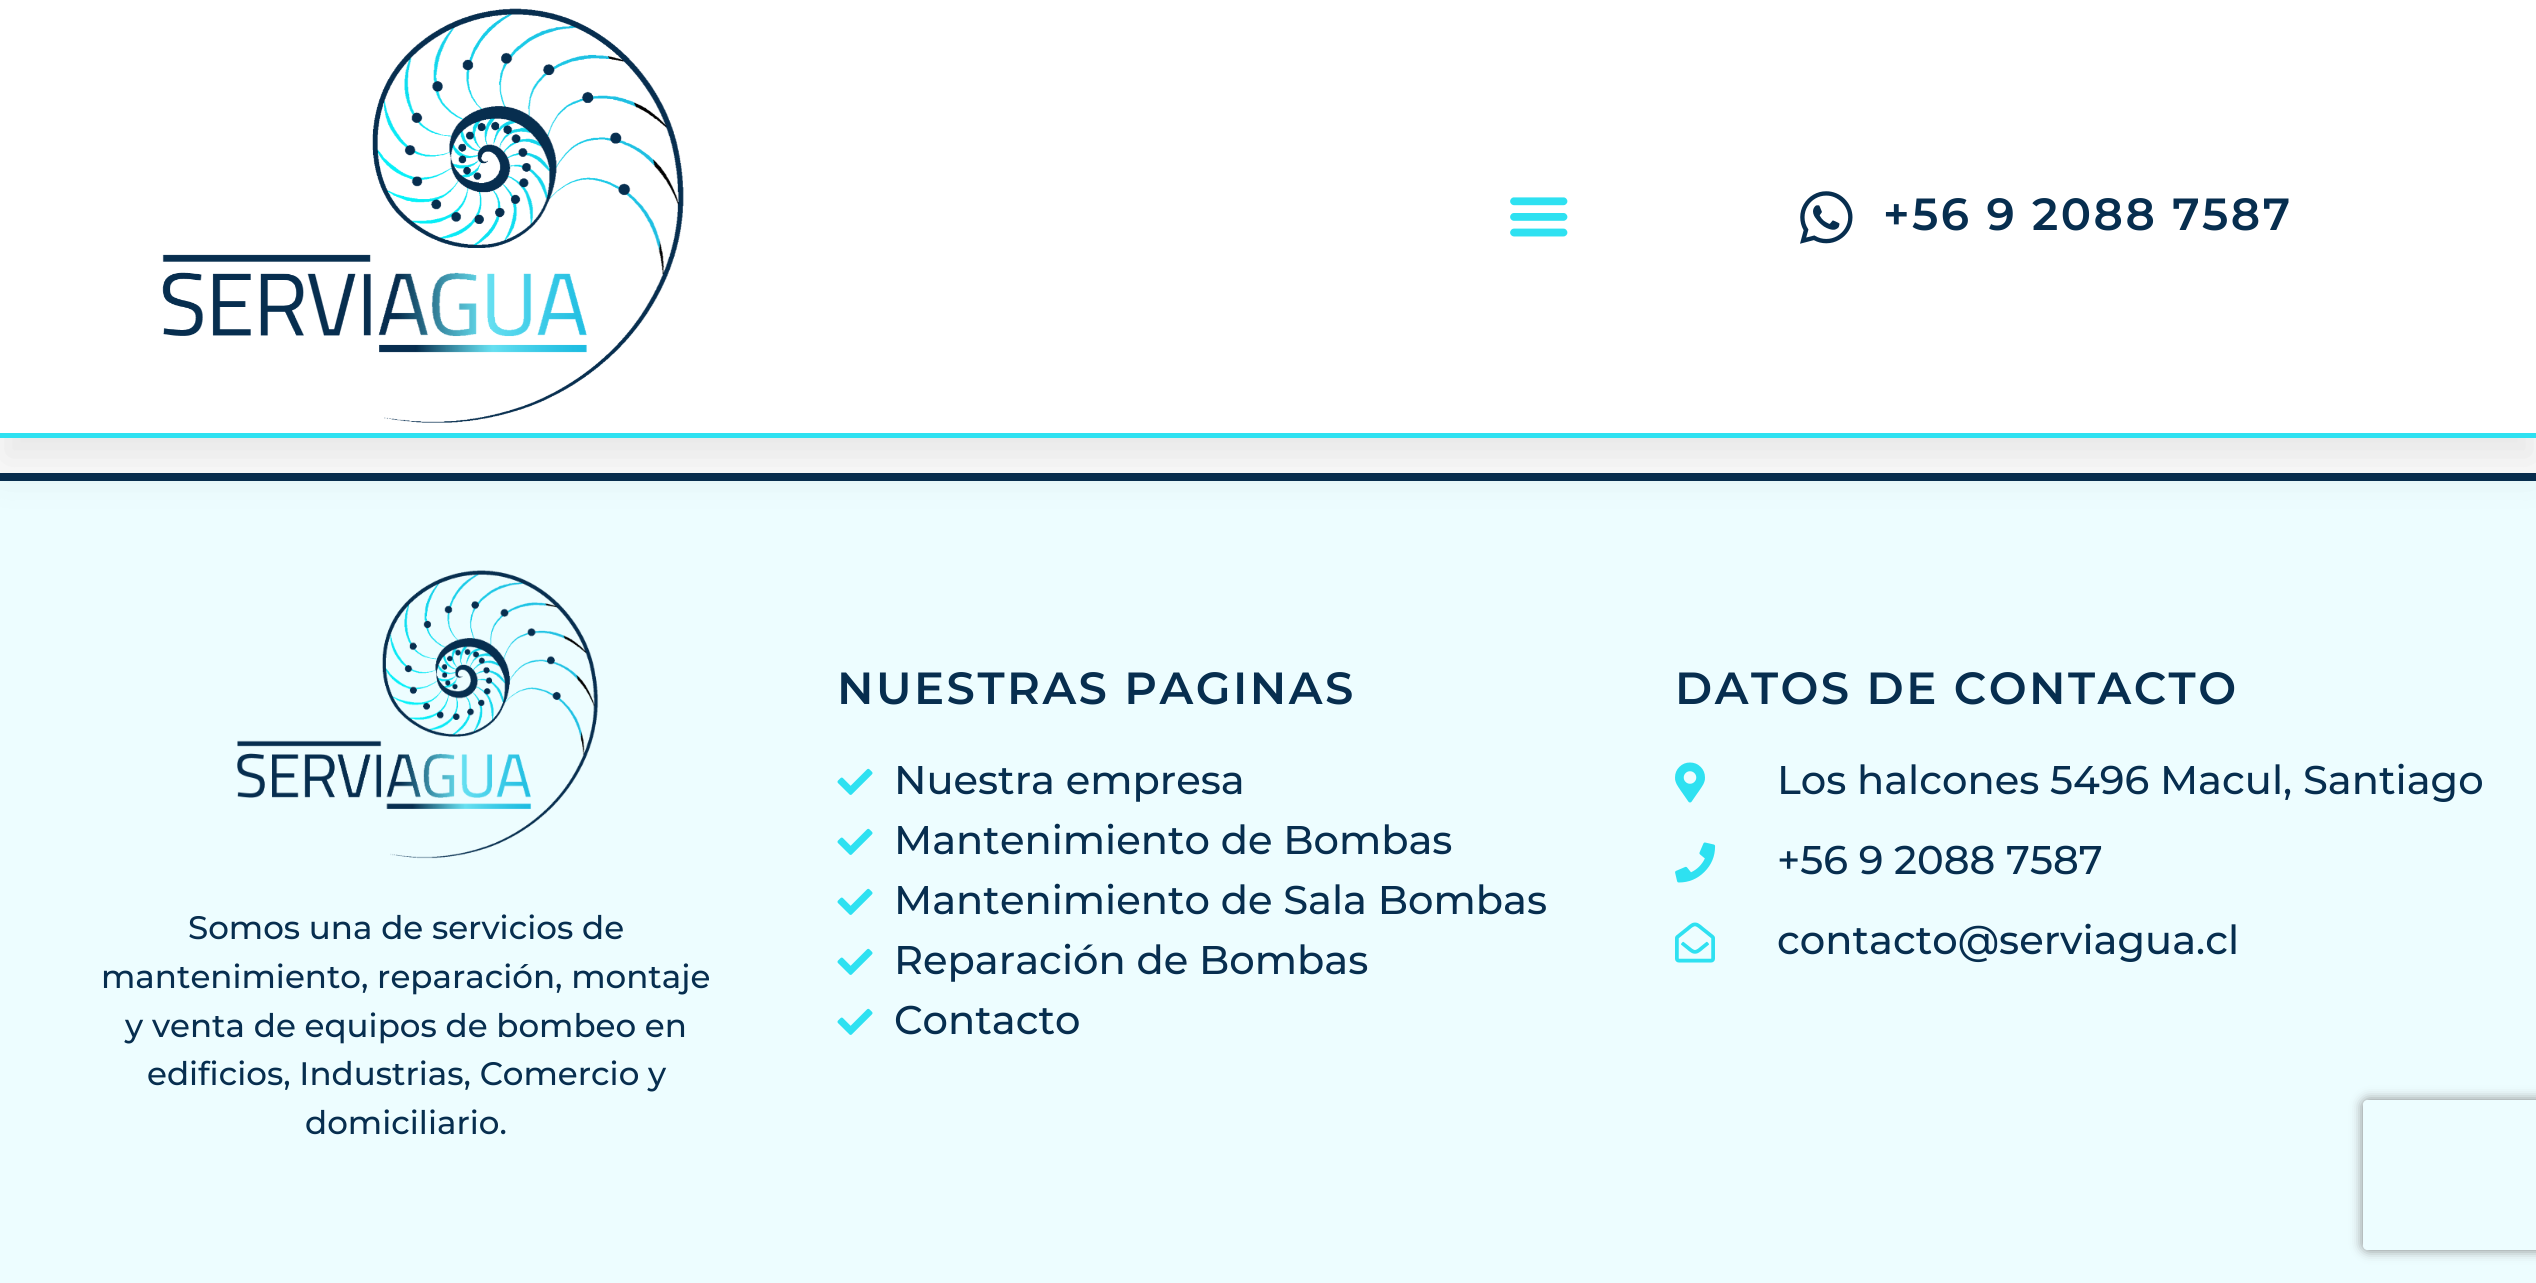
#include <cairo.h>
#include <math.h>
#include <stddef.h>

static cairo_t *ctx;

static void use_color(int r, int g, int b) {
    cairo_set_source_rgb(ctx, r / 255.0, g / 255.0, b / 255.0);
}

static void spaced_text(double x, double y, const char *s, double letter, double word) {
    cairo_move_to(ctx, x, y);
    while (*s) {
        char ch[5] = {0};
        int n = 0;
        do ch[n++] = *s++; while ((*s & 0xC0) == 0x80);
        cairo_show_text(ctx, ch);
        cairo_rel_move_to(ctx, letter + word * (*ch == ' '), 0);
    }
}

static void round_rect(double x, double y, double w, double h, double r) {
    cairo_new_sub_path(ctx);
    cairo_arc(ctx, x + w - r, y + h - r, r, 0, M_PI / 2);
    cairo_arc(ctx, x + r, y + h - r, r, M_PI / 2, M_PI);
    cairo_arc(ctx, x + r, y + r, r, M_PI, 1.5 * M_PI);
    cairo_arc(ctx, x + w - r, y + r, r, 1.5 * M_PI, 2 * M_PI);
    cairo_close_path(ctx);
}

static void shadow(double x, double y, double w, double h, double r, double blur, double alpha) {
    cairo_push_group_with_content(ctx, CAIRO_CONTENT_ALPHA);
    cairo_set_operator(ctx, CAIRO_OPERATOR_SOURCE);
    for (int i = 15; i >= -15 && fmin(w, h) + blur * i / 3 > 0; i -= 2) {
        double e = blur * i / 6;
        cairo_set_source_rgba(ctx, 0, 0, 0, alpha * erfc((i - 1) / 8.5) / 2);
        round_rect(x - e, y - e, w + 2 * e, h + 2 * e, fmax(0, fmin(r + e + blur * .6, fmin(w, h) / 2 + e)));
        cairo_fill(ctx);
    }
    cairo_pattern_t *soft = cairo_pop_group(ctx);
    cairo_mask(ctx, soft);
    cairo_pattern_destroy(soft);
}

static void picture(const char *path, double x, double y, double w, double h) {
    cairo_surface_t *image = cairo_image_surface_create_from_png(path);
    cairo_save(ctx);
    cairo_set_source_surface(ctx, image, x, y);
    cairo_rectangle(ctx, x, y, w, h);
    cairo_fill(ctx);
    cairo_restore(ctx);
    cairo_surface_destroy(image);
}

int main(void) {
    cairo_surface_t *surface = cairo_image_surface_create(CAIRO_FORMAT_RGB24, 2536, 1283);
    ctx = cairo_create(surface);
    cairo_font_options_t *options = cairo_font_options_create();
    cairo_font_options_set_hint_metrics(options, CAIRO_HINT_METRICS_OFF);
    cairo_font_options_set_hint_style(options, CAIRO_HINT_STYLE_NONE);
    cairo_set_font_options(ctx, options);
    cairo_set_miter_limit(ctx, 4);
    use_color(255, 255, 255);
    cairo_paint(ctx);
    use_color(237, 253, 255);
    cairo_rectangle(ctx, 0, 481, 2536, 802);
    cairo_fill(ctx);
    use_color(7, 46, 79);
    cairo_rectangle(ctx, 0, 473, 2536, 8);
    cairo_fill(ctx);
    use_color(0, 0, 0);
    shadow(0, 25, 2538, 438, 0, 25, 0.1);
    use_color(255, 255, 255);
    cairo_rectangle(ctx, 0, 0, 2536, 433);
    cairo_fill(ctx);
    use_color(46, 225, 241);
    cairo_rectangle(ctx, 0, 433, 2536, 5);
    cairo_fill(ctx);
    picture("img1.png", 162, 8, 522, 415);
    picture("img2.png", 1510, 197, 58, 40);
    picture("img3.png", 1800, 191, 53, 53);
    cairo_select_font_face(ctx, "Montserrat SemiBold", CAIRO_FONT_SLANT_NORMAL, CAIRO_FONT_WEIGHT_NORMAL);
    cairo_set_font_size(ctx, 45);
    use_color(7, 46, 79);
    spaced_text(1883, 230, "+56 9 2088 7587", 2.5, 0);
    spaced_text(837, 704, "NUESTRAS PAGINAS", 2.5, 0);
    picture("img4.png", 837, 768, 36, 27);
    cairo_select_font_face(ctx, "Montserrat Medium", CAIRO_FONT_SLANT_NORMAL, CAIRO_FONT_WEIGHT_NORMAL);
    cairo_set_font_size(ctx, 40);
    cairo_move_to(ctx, 894, 794);
    cairo_show_text(ctx, "Nuestra empresa");
    picture("img4.png", 837, 828, 36, 27);
    cairo_move_to(ctx, 894, 854);
    cairo_show_text(ctx, "Mantenimiento de Bombas");
    picture("img4.png", 837, 888, 36, 27);
    cairo_move_to(ctx, 894, 914);
    cairo_show_text(ctx, "Mantenimiento de Sala Bombas");
    picture("img4.png", 837, 948, 36, 27);
    cairo_move_to(ctx, 894, 974);
    cairo_show_text(ctx, "Reparación de Bombas");
    picture("img4.png", 837, 1008, 36, 27);
    cairo_move_to(ctx, 894, 1034);
    cairo_show_text(ctx, "Contacto");
    cairo_select_font_face(ctx, "Montserrat SemiBold", CAIRO_FONT_SLANT_NORMAL, CAIRO_FONT_WEIGHT_NORMAL);
    cairo_set_font_size(ctx, 45);
    spaced_text(1675, 704, "DATOS DE CONTACTO", 2.5, 0);
    picture("img5.png", 1675, 762, 30, 41);
    cairo_select_font_face(ctx, "Montserrat Medium", CAIRO_FONT_SLANT_NORMAL, CAIRO_FONT_WEIGHT_NORMAL);
    cairo_set_font_size(ctx, 40);
    cairo_move_to(ctx, 1777, 794);
    cairo_show_text(ctx, "Los halcones 5496 Macul, Santiago");
    picture("img6.png", 1675, 842, 41, 41);
    cairo_move_to(ctx, 1777, 874);
    cairo_show_text(ctx, "+56 9 2088 7587");
    picture("img7.png", 1675, 922, 40, 41);
    cairo_move_to(ctx, 1777, 954);
    cairo_show_text(ctx, "contacto@serviagua.cl");
    picture("img8.png", 237, 570, 362, 289);
    cairo_set_font_size(ctx, 32.5);
    cairo_move_to(ctx, 188, 939);
    cairo_show_text(ctx, "Somos una de servicios de");
    cairo_move_to(ctx, 101, 988);
    cairo_show_text(ctx, "mantenimiento, reparación, montaje");
    cairo_move_to(ctx, 125, 1037);
    cairo_show_text(ctx, "y venta de equipos de bombeo en");
    cairo_move_to(ctx, 147, 1085);
    cairo_show_text(ctx, "edificios, Industrias, Comercio y");
    cairo_move_to(ctx, 305, 1134);
    cairo_show_text(ctx, "domiciliario.");
    cairo_save(ctx);
    cairo_set_fill_rule(ctx, CAIRO_FILL_RULE_EVEN_ODD);
    cairo_new_path(ctx);
    cairo_move_to(ctx, 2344, 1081);
    cairo_line_to(ctx, 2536, 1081);
    cairo_line_to(ctx, 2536, 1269);
    cairo_line_to(ctx, 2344, 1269);
    cairo_close_path(ctx);
    cairo_move_to(ctx, 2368, 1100);
    cairo_line_to(ctx, 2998, 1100);
    cairo_curve_to(ctx, 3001, 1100, 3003, 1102, 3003, 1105);
    cairo_line_to(ctx, 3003, 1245);
    cairo_curve_to(ctx, 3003, 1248, 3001, 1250, 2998, 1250);
    cairo_line_to(ctx, 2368, 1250);
    cairo_curve_to(ctx, 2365, 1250, 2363, 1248, 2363, 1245);
    cairo_line_to(ctx, 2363, 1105);
    cairo_curve_to(ctx, 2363, 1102, 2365, 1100, 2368, 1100);
    cairo_close_path(ctx);
    cairo_clip(ctx);
    use_color(128, 128, 128);
    shadow(2363, 1100, 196, 150, 5, 6, 1);
    cairo_restore(ctx);
    cairo_surface_write_to_png(surface, "result.png");
    cairo_font_options_destroy(options);
    cairo_destroy(ctx);
    cairo_surface_destroy(surface);
    return 0;
}
